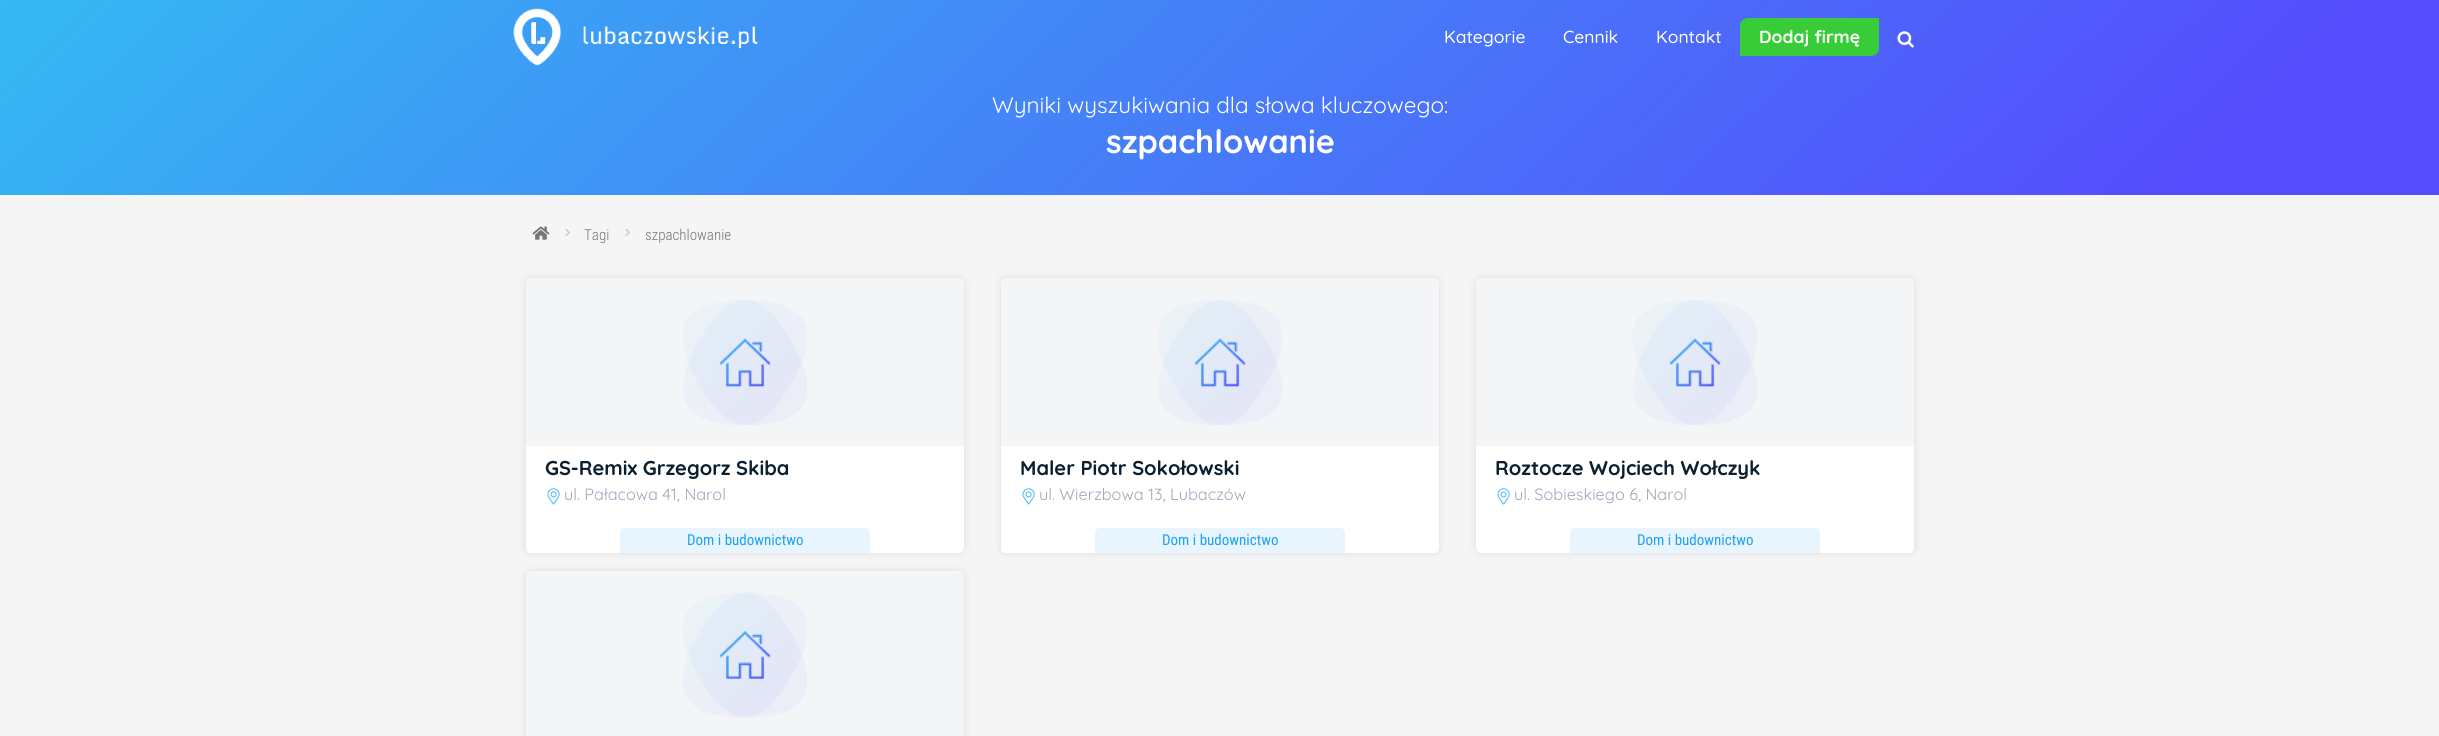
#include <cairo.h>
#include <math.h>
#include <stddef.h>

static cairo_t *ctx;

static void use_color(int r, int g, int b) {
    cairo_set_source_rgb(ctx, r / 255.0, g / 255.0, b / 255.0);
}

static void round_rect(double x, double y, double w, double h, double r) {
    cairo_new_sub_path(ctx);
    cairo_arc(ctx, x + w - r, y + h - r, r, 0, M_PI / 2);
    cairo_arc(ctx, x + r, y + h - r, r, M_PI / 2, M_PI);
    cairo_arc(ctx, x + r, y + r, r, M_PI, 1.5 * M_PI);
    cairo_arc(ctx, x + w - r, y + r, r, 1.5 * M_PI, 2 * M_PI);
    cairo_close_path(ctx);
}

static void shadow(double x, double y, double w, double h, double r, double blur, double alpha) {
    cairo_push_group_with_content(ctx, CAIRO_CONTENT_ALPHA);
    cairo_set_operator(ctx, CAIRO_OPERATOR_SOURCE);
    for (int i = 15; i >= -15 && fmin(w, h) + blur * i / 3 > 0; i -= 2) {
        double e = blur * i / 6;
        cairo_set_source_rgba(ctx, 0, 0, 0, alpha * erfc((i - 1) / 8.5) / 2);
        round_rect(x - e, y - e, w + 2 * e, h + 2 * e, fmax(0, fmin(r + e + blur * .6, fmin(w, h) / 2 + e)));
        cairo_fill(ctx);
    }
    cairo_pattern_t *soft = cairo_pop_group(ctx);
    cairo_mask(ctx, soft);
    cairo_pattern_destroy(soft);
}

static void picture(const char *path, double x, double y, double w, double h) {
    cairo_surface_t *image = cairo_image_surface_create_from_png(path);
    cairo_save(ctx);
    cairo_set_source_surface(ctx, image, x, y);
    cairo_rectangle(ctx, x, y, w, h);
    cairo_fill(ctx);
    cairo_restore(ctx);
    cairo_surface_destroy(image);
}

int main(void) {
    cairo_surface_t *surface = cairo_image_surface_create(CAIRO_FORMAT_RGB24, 2439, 736);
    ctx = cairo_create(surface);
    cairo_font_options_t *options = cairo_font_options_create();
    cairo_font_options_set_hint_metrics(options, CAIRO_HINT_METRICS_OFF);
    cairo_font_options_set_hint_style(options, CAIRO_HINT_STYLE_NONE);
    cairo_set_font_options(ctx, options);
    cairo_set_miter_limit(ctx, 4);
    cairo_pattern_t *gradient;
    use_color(245, 245, 245);
    cairo_paint(ctx);
    gradient = cairo_pattern_create_linear(604, -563, 1836, 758);
    cairo_pattern_add_color_stop_rgba(gradient, 0, 0.204, 0.725, 0.949, 1);
    cairo_pattern_add_color_stop_rgba(gradient, 0.9, 0.333, 0.298, 0.992, 1);
    cairo_set_source(ctx, gradient);
    cairo_pattern_destroy(gradient);
    cairo_rectangle(ctx, 0, 0, 2439, 195);
    cairo_fill(ctx);
    picture("img1.png", 513, 8, 245, 58);
    cairo_select_font_face(ctx, "Quicksand Medium", CAIRO_FONT_SLANT_NORMAL, CAIRO_FONT_WEIGHT_NORMAL);
    cairo_set_font_size(ctx, 17.5);
    use_color(255, 255, 255);
    cairo_move_to(ctx, 1444, 43);
    cairo_show_text(ctx, "Kategorie");
    cairo_move_to(ctx, 1563, 43);
    cairo_show_text(ctx, "Cennik");
    cairo_move_to(ctx, 1656, 43);
    cairo_show_text(ctx, "Kontakt");
    use_color(56, 204, 56);
    cairo_new_path(ctx);
    cairo_move_to(ctx, 1748, 18);
    cairo_line_to(ctx, 1879, 18);
    cairo_line_to(ctx, 1879, 48);
    cairo_curve_to(ctx, 1879, 52.5, 1875.5, 56, 1871, 56);
    cairo_line_to(ctx, 1740, 56);
    cairo_line_to(ctx, 1740, 26);
    cairo_curve_to(ctx, 1740, 21.5, 1743.5, 18, 1748, 18);
    cairo_close_path(ctx);
    cairo_fill(ctx);
    cairo_select_font_face(ctx, "Quicksand", CAIRO_FONT_SLANT_NORMAL, CAIRO_FONT_WEIGHT_BOLD);
    use_color(255, 255, 255);
    cairo_move_to(ctx, 1759, 43);
    cairo_show_text(ctx, "Dodaj firmę");
    picture("img2.png", 1897, 31, 17, 17);
    cairo_select_font_face(ctx, "Quicksand", CAIRO_FONT_SLANT_NORMAL, CAIRO_FONT_WEIGHT_NORMAL);
    cairo_set_font_size(ctx, 22.5);
    cairo_move_to(ctx, 992, 113);
    cairo_show_text(ctx, "Wyniki wyszukiwania dla słowa kluczowego:");
    cairo_select_font_face(ctx, "Quicksand", CAIRO_FONT_SLANT_NORMAL, CAIRO_FONT_WEIGHT_BOLD);
    cairo_set_font_size(ctx, 32.5);
    cairo_move_to(ctx, 1106, 153);
    cairo_show_text(ctx, "szpachlowanie");
    picture("img3.png", 532, 226, 18, 14);
    picture("img4.png", 565, 229, 5, 7);
    cairo_select_font_face(ctx, "Roboto Condensed Light", CAIRO_FONT_SLANT_NORMAL, CAIRO_FONT_WEIGHT_NORMAL);
    cairo_set_font_size(ctx, 15);
    use_color(118, 118, 118);
    cairo_move_to(ctx, 584, 240);
    cairo_show_text(ctx, "Tagi");
    picture("img4.png", 625, 229, 5, 7);
    use_color(108, 117, 125);
    cairo_move_to(ctx, 645, 240);
    cairo_show_text(ctx, "szpachlowanie");
    use_color(0, 0, 0);
    shadow(526, 278, 438, 275, 5, 4, 0.1);
    use_color(255, 255, 255);
    round_rect(526, 278, 438, 275, 5);
    cairo_fill(ctx);
    use_color(244, 245, 247);
    cairo_new_path(ctx);
    cairo_move_to(ctx, 531, 278);
    cairo_line_to(ctx, 959, 278);
    cairo_curve_to(ctx, 962, 278, 964, 280, 964, 283);
    cairo_line_to(ctx, 964, 446);
    cairo_line_to(ctx, 526, 446);
    cairo_line_to(ctx, 526, 283);
    cairo_curve_to(ctx, 526, 280, 528, 278, 531, 278);
    cairo_close_path(ctx);
    cairo_fill(ctx);
    picture("img5.png", 682, 300, 125, 125);
    cairo_select_font_face(ctx, "Quicksand", CAIRO_FONT_SLANT_NORMAL, CAIRO_FONT_WEIGHT_BOLD);
    cairo_set_font_size(ctx, 20);
    use_color(11, 31, 47);
    cairo_move_to(ctx, 545, 475);
    cairo_show_text(ctx, "GS-Remix Grzegorz Skiba");
    picture("img6.png", 547, 488, 13, 17);
    cairo_select_font_face(ctx, "Quicksand", CAIRO_FONT_SLANT_NORMAL, CAIRO_FONT_WEIGHT_NORMAL);
    cairo_set_font_size(ctx, 16.25);
    use_color(158, 166, 186);
    cairo_move_to(ctx, 564, 500);
    cairo_show_text(ctx, "ul. Pałacowa 41, Narol");
    use_color(232, 245, 254);
    cairo_new_path(ctx);
    cairo_move_to(ctx, 625, 528);
    cairo_line_to(ctx, 865, 528);
    cairo_curve_to(ctx, 868, 528, 870, 530, 870, 533);
    cairo_line_to(ctx, 870, 553);
    cairo_line_to(ctx, 620, 553);
    cairo_line_to(ctx, 620, 533);
    cairo_curve_to(ctx, 620, 530, 622, 528, 625, 528);
    cairo_close_path(ctx);
    cairo_fill(ctx);
    cairo_select_font_face(ctx, "Roboto Condensed", CAIRO_FONT_SLANT_NORMAL, CAIRO_FONT_WEIGHT_NORMAL);
    cairo_set_font_size(ctx, 15);
    use_color(29, 161, 242);
    cairo_move_to(ctx, 687, 545);
    cairo_show_text(ctx, "Dom i budownictwo");
    use_color(0, 0, 0);
    shadow(1001, 278, 438, 275, 5, 4, 0.1);
    use_color(255, 255, 255);
    round_rect(1001, 278, 438, 275, 5);
    cairo_fill(ctx);
    use_color(244, 245, 247);
    cairo_new_path(ctx);
    cairo_move_to(ctx, 1006, 278);
    cairo_line_to(ctx, 1434, 278);
    cairo_curve_to(ctx, 1437, 278, 1439, 280, 1439, 283);
    cairo_line_to(ctx, 1439, 446);
    cairo_line_to(ctx, 1001, 446);
    cairo_line_to(ctx, 1001, 283);
    cairo_curve_to(ctx, 1001, 280, 1003, 278, 1006, 278);
    cairo_close_path(ctx);
    cairo_fill(ctx);
    picture("img7.png", 1157, 300, 125, 125);
    cairo_select_font_face(ctx, "Quicksand", CAIRO_FONT_SLANT_NORMAL, CAIRO_FONT_WEIGHT_BOLD);
    cairo_set_font_size(ctx, 20);
    use_color(11, 31, 47);
    cairo_move_to(ctx, 1020, 475);
    cairo_show_text(ctx, "Maler Piotr Sokołowski");
    picture("img6.png", 1022, 488, 13, 17);
    cairo_select_font_face(ctx, "Quicksand", CAIRO_FONT_SLANT_NORMAL, CAIRO_FONT_WEIGHT_NORMAL);
    cairo_set_font_size(ctx, 16.25);
    use_color(158, 166, 186);
    cairo_move_to(ctx, 1039, 500);
    cairo_show_text(ctx, "ul. Wierzbowa 13, Lubaczów");
    use_color(232, 245, 254);
    cairo_new_path(ctx);
    cairo_move_to(ctx, 1100, 528);
    cairo_line_to(ctx, 1340, 528);
    cairo_curve_to(ctx, 1343, 528, 1345, 530, 1345, 533);
    cairo_line_to(ctx, 1345, 553);
    cairo_line_to(ctx, 1095, 553);
    cairo_line_to(ctx, 1095, 533);
    cairo_curve_to(ctx, 1095, 530, 1097, 528, 1100, 528);
    cairo_close_path(ctx);
    cairo_fill(ctx);
    cairo_select_font_face(ctx, "Roboto Condensed", CAIRO_FONT_SLANT_NORMAL, CAIRO_FONT_WEIGHT_NORMAL);
    cairo_set_font_size(ctx, 15);
    use_color(29, 161, 242);
    cairo_move_to(ctx, 1162, 545);
    cairo_show_text(ctx, "Dom i budownictwo");
    use_color(0, 0, 0);
    shadow(1476, 278, 438, 275, 5, 4, 0.1);
    use_color(255, 255, 255);
    round_rect(1476, 278, 438, 275, 5);
    cairo_fill(ctx);
    use_color(244, 245, 247);
    cairo_new_path(ctx);
    cairo_move_to(ctx, 1481, 278);
    cairo_line_to(ctx, 1909, 278);
    cairo_curve_to(ctx, 1912, 278, 1914, 280, 1914, 283);
    cairo_line_to(ctx, 1914, 446);
    cairo_line_to(ctx, 1476, 446);
    cairo_line_to(ctx, 1476, 283);
    cairo_curve_to(ctx, 1476, 280, 1478, 278, 1481, 278);
    cairo_close_path(ctx);
    cairo_fill(ctx);
    picture("img8.png", 1632, 300, 125, 125);
    cairo_select_font_face(ctx, "Quicksand", CAIRO_FONT_SLANT_NORMAL, CAIRO_FONT_WEIGHT_BOLD);
    cairo_set_font_size(ctx, 20);
    use_color(11, 31, 47);
    cairo_move_to(ctx, 1495, 475);
    cairo_show_text(ctx, "Roztocze Wojciech Wołczyk");
    picture("img6.png", 1497, 488, 13, 17);
    cairo_select_font_face(ctx, "Quicksand", CAIRO_FONT_SLANT_NORMAL, CAIRO_FONT_WEIGHT_NORMAL);
    cairo_set_font_size(ctx, 16.25);
    use_color(158, 166, 186);
    cairo_move_to(ctx, 1514, 500);
    cairo_show_text(ctx, "ul. Sobieskiego 6, Narol");
    use_color(232, 245, 254);
    cairo_new_path(ctx);
    cairo_move_to(ctx, 1575, 528);
    cairo_line_to(ctx, 1815, 528);
    cairo_curve_to(ctx, 1818, 528, 1820, 530, 1820, 533);
    cairo_line_to(ctx, 1820, 553);
    cairo_line_to(ctx, 1570, 553);
    cairo_line_to(ctx, 1570, 533);
    cairo_curve_to(ctx, 1570, 530, 1572, 528, 1575, 528);
    cairo_close_path(ctx);
    cairo_fill(ctx);
    cairo_select_font_face(ctx, "Roboto Condensed", CAIRO_FONT_SLANT_NORMAL, CAIRO_FONT_WEIGHT_NORMAL);
    cairo_set_font_size(ctx, 15);
    use_color(29, 161, 242);
    cairo_move_to(ctx, 1637, 545);
    cairo_show_text(ctx, "Dom i budownictwo");
    use_color(0, 0, 0);
    shadow(526, 571, 438, 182, 5, 4, 0.1);
    use_color(244, 245, 247);
    cairo_new_path(ctx);
    cairo_move_to(ctx, 531, 571);
    cairo_line_to(ctx, 959, 571);
    cairo_curve_to(ctx, 962, 571, 964, 573, 964, 576);
    cairo_line_to(ctx, 964, 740);
    cairo_line_to(ctx, 526, 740);
    cairo_line_to(ctx, 526, 576);
    cairo_curve_to(ctx, 526, 573, 528, 571, 531, 571);
    cairo_close_path(ctx);
    cairo_fill(ctx);
    picture("img9.png", 682, 592, 125, 126);
    cairo_surface_write_to_png(surface, "result.png");
    cairo_font_options_destroy(options);
    cairo_destroy(ctx);
    cairo_surface_destroy(surface);
    return 0;
}
